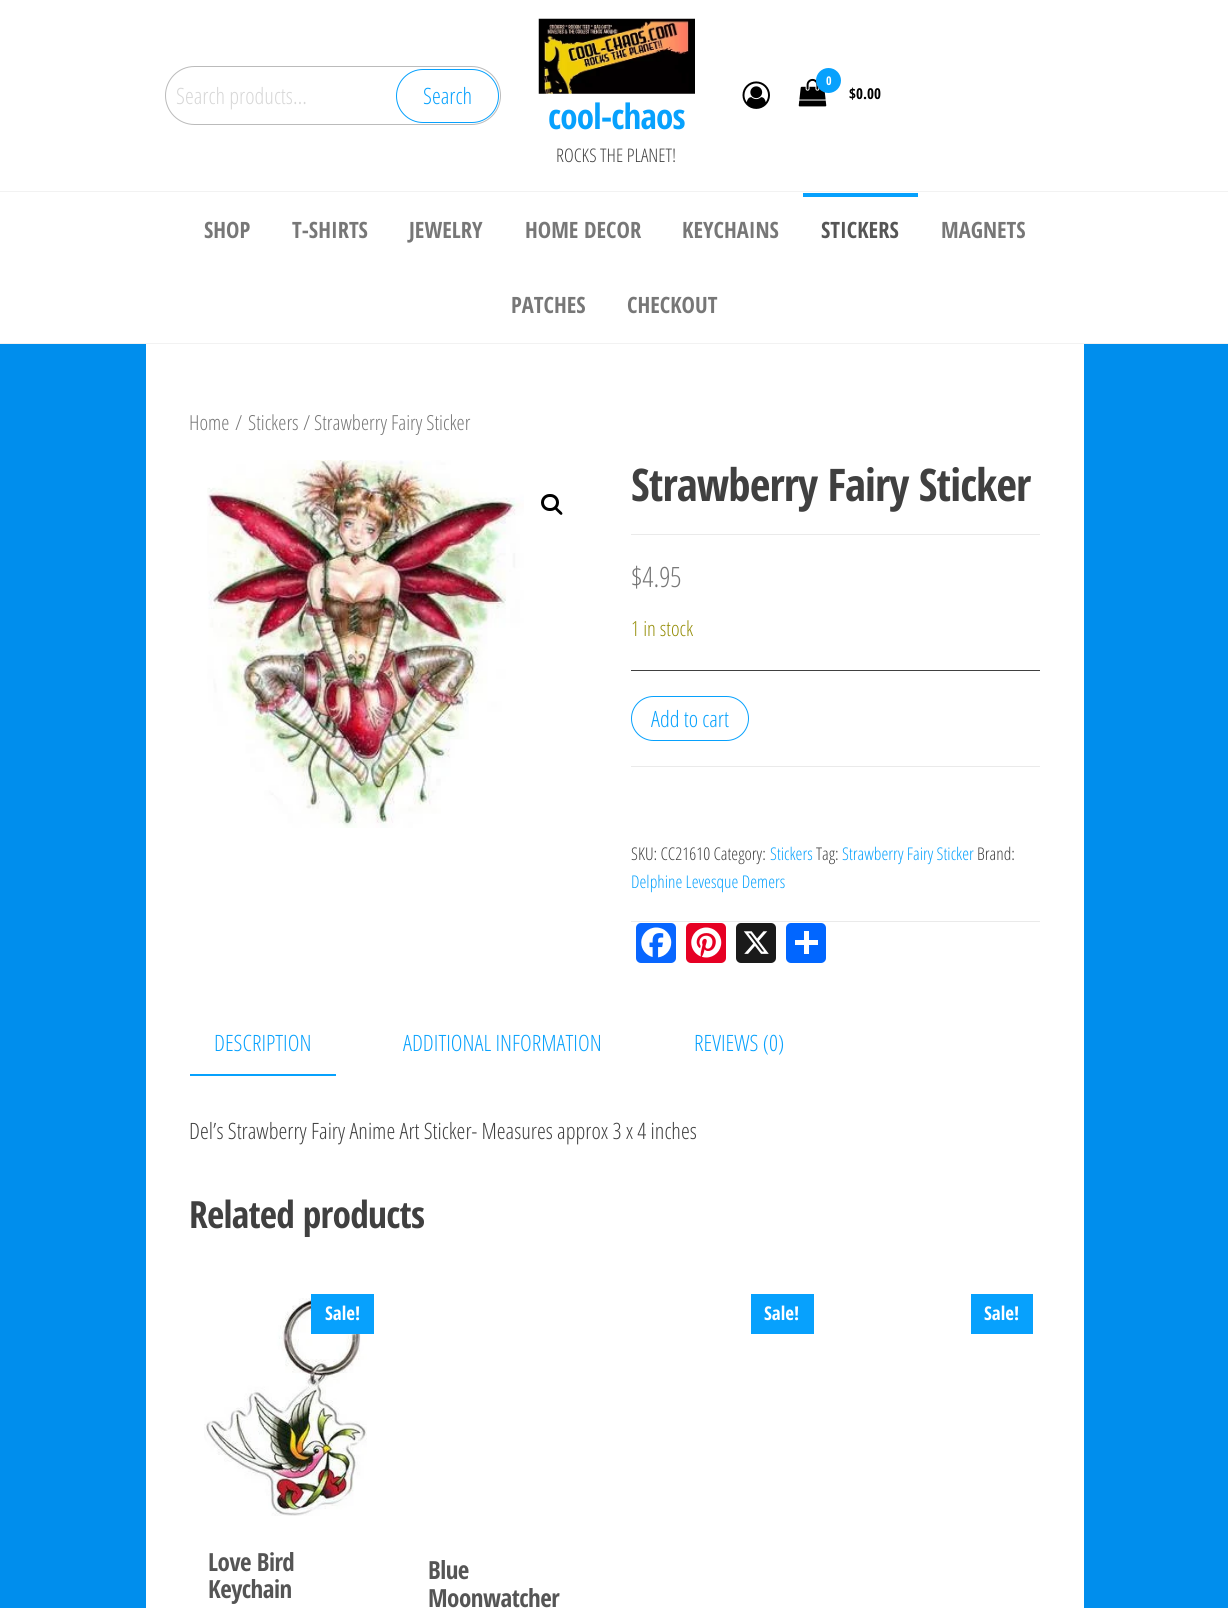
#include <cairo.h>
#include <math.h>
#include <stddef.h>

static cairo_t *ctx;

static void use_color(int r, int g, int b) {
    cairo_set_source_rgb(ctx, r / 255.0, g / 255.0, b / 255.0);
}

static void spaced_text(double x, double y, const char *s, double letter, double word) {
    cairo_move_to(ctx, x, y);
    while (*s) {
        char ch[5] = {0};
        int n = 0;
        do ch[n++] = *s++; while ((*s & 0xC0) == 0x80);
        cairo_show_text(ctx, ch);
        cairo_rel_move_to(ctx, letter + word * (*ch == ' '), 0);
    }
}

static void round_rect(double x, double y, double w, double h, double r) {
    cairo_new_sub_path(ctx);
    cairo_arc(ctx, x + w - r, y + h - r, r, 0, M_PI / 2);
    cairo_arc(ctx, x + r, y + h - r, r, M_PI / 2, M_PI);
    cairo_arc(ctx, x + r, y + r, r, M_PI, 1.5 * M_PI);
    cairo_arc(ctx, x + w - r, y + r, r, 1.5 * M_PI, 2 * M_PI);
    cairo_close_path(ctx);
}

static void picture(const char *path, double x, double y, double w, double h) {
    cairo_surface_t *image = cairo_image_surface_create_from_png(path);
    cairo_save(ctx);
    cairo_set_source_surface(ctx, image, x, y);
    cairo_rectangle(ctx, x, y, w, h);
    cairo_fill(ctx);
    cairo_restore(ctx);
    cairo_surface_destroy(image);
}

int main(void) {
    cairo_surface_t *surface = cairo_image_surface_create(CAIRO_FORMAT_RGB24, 1228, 1608);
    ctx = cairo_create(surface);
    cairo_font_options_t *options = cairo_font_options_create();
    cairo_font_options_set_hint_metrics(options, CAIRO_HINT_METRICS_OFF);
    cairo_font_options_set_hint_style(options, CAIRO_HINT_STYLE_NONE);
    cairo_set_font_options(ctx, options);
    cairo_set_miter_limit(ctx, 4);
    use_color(0, 142, 237);
    cairo_paint(ctx);
    use_color(255, 255, 255);
    cairo_rectangle(ctx, 0, 0, 1228, 191);
    cairo_fill(ctx);
    round_rect(165.5, 66.5, 335, 58, 29);
    use_color(187, 187, 187);
    cairo_set_line_width(ctx, 1);
    cairo_stroke(ctx);
    cairo_select_font_face(ctx, "Open Sans Condensed Light", CAIRO_FONT_SLANT_NORMAL, CAIRO_FONT_WEIGHT_NORMAL);
    cairo_set_font_size(ctx, 22.5);
    use_color(215, 215, 215);
    cairo_move_to(ctx, 176, 104);
    cairo_show_text(ctx, "Search products…");
    round_rect(396.5, 69.5, 102, 53, 26.5);
    use_color(7, 161, 253);
    cairo_stroke(ctx);
    cairo_move_to(ctx, 423, 104);
    cairo_show_text(ctx, "Search");
    picture("img1.png", 742, 81, 28, 28);
    picture("img2.png", 798, 78, 29, 29);
    cairo_arc(ctx, 828.5, 80.5, 12.5, 0, 2 * M_PI);
    cairo_fill(ctx);
    cairo_select_font_face(ctx, "Open Sans Condensed", CAIRO_FONT_SLANT_NORMAL, CAIRO_FONT_WEIGHT_BOLD);
    cairo_set_font_size(ctx, 12);
    use_color(255, 255, 255);
    cairo_move_to(ctx, 826, 85);
    cairo_show_text(ctx, "0");
    cairo_set_font_size(ctx, 15);
    use_color(0, 0, 0);
    cairo_move_to(ctx, 849, 99);
    cairo_show_text(ctx, "$0.00");
    picture("img3.png", 538, 18, 157, 76);
    cairo_set_font_size(ctx, 35);
    use_color(7, 161, 253);
    spaced_text(548, 129, "cool-chaos", -0.75, 0);
    cairo_select_font_face(ctx, "Open Sans Condensed Light", CAIRO_FONT_SLANT_NORMAL, CAIRO_FONT_WEIGHT_NORMAL);
    cairo_set_font_size(ctx, 18.75);
    use_color(64, 64, 64);
    cairo_move_to(ctx, 556, 162);
    cairo_show_text(ctx, "ROCKS THE PLANET!");
    use_color(255, 255, 255);
    cairo_rectangle(ctx, 0, 192, 1228, 151);
    cairo_fill(ctx);
    use_color(242, 242, 242);
    cairo_rectangle(ctx, 0, 191, 1228, 1);
    cairo_fill(ctx);
    cairo_rectangle(ctx, 0, 343, 1228, 1);
    cairo_fill(ctx);
    cairo_select_font_face(ctx, "Open Sans Condensed", CAIRO_FONT_SLANT_NORMAL, CAIRO_FONT_WEIGHT_BOLD);
    cairo_set_font_size(ctx, 22.5);
    use_color(119, 119, 119);
    cairo_move_to(ctx, 204, 238);
    cairo_show_text(ctx, "SHOP");
    cairo_move_to(ctx, 292, 238);
    cairo_show_text(ctx, "T-SHIRTS");
    cairo_move_to(ctx, 409, 238);
    cairo_show_text(ctx, "JEWELRY");
    cairo_move_to(ctx, 525, 238);
    cairo_show_text(ctx, "HOME DECOR");
    cairo_move_to(ctx, 682, 238);
    cairo_show_text(ctx, "KEYCHAINS");
    use_color(7, 161, 253);
    cairo_rectangle(ctx, 803, 193, 115, 4);
    cairo_fill(ctx);
    use_color(85, 85, 85);
    cairo_move_to(ctx, 821, 238);
    cairo_show_text(ctx, "STICKERS");
    use_color(119, 119, 119);
    cairo_move_to(ctx, 941, 238);
    cairo_show_text(ctx, "MAGNETS");
    cairo_move_to(ctx, 511, 313);
    cairo_show_text(ctx, "PATCHES");
    cairo_move_to(ctx, 627, 313);
    cairo_show_text(ctx, "CHECKOUT");
    use_color(255, 255, 255);
    cairo_rectangle(ctx, 146, 344, 938, 1264);
    cairo_fill(ctx);
    cairo_select_font_face(ctx, "Open Sans Condensed Light", CAIRO_FONT_SLANT_NORMAL, CAIRO_FONT_WEIGHT_NORMAL);
    cairo_set_font_size(ctx, 20.75);
    use_color(119, 119, 119);
    cairo_move_to(ctx, 189, 430);
    cairo_show_text(ctx, "Home");
    cairo_move_to(ctx, 235, 430);
    cairo_show_text(ctx, "/");
    cairo_move_to(ctx, 248, 430);
    cairo_show_text(ctx, "Stickers");
    cairo_move_to(ctx, 303, 430);
    cairo_show_text(ctx, "/ Strawberry Fairy Sticker");
    picture("img4.png", 207, 460, 317, 368);
    round_rect(542.5, 495.5, 15, 14, 7);
    use_color(0, 0, 0);
    cairo_set_line_width(ctx, 3);
    cairo_stroke(ctx);
    cairo_new_path(ctx);
    cairo_move_to(ctx, 555, 507.5);
    cairo_curve_to(ctx, 556.5, 506, 558.5, 509.5, 559.5, 510);
    cairo_curve_to(ctx, 560.5, 511, 563.5, 513, 562, 514.5);
    cairo_curve_to(ctx, 560.5, 516, 558.5, 512.5, 557.5, 512);
    cairo_curve_to(ctx, 557, 511, 553.5, 509, 555, 507.5);
    cairo_close_path(ctx);
    cairo_fill(ctx);
    use_color(234, 234, 234);
    cairo_rectangle(ctx, 631, 534, 409, 1);
    cairo_fill(ctx);
    cairo_select_font_face(ctx, "Open Sans Condensed", CAIRO_FONT_SLANT_NORMAL, CAIRO_FONT_WEIGHT_BOLD);
    cairo_set_font_size(ctx, 45);
    use_color(64, 64, 64);
    spaced_text(631, 501, "Strawberry Fairy Sticker", -0.9, 0);
    cairo_select_font_face(ctx, "Open Sans Condensed Light", CAIRO_FONT_SLANT_NORMAL, CAIRO_FONT_WEIGHT_NORMAL);
    cairo_set_font_size(ctx, 28);
    use_color(119, 119, 119);
    cairo_move_to(ctx, 631, 587);
    cairo_show_text(ctx, "$4.95");
    cairo_set_font_size(ctx, 20.75);
    use_color(149, 142, 9);
    cairo_move_to(ctx, 631, 636);
    cairo_show_text(ctx, "1 in stock");
    use_color(64, 64, 64);
    cairo_rectangle(ctx, 631, 670, 409, 1);
    cairo_fill(ctx);
    use_color(234, 234, 234);
    cairo_rectangle(ctx, 631, 766, 409, 1);
    cairo_fill(ctx);
    round_rect(631.5, 696.5, 117, 44, 22);
    use_color(7, 161, 253);
    cairo_set_line_width(ctx, 1);
    cairo_stroke(ctx);
    cairo_set_font_size(ctx, 22.5);
    cairo_move_to(ctx, 651, 727);
    cairo_show_text(ctx, "Add to cart");
    use_color(234, 234, 234);
    cairo_rectangle(ctx, 631, 921, 409, 1);
    cairo_fill(ctx);
    cairo_set_font_size(ctx, 17.5);
    use_color(64, 64, 64);
    cairo_move_to(ctx, 631, 860);
    cairo_show_text(ctx, "SKU: CC21610 Category:");
    use_color(7, 161, 253);
    cairo_move_to(ctx, 770, 860);
    cairo_show_text(ctx, "Stickers");
    use_color(64, 64, 64);
    cairo_move_to(ctx, 816, 860);
    cairo_show_text(ctx, "Tag:");
    use_color(7, 161, 253);
    cairo_move_to(ctx, 842, 860);
    cairo_show_text(ctx, "Strawberry Fairy Sticker");
    use_color(64, 64, 64);
    cairo_move_to(ctx, 977, 860);
    cairo_show_text(ctx, "Brand:");
    use_color(7, 161, 253);
    cairo_move_to(ctx, 631, 888);
    cairo_show_text(ctx, "Delphine Levesque Demers");
    use_color(8, 102, 255);
    round_rect(636, 923, 40, 40, 5);
    cairo_fill(ctx);
    picture("img5.png", 641, 927, 31, 31);
    use_color(230, 0, 35);
    round_rect(686, 923, 40, 40, 5);
    cairo_fill(ctx);
    picture("img6.png", 691, 927, 31, 31);
    use_color(26, 26, 26);
    round_rect(736, 923, 40, 40, 5);
    cairo_fill(ctx);
    picture("img7.png", 743, 931, 26, 23);
    use_color(1, 102, 255);
    round_rect(786, 923, 40, 40, 5);
    cairo_fill(ctx);
    use_color(255, 255, 255);
    cairo_rectangle(ctx, 804, 931, 5, 23);
    cairo_fill(ctx);
    cairo_rectangle(ctx, 795, 940, 23, 5);
    cairo_fill(ctx);
    use_color(7, 161, 253);
    cairo_rectangle(ctx, 190, 1074, 146, 2);
    cairo_fill(ctx);
    cairo_set_font_size(ctx, 22.5);
    cairo_move_to(ctx, 214, 1051);
    cairo_show_text(ctx, "DESCRIPTION");
    cairo_move_to(ctx, 403, 1051);
    cairo_show_text(ctx, "ADDITIONAL INFORMATION");
    cairo_move_to(ctx, 694, 1051);
    cairo_show_text(ctx, "REVIEWS (0)");
    use_color(64, 64, 64);
    cairo_move_to(ctx, 189, 1139);
    cairo_show_text(ctx, "Del’s Strawberry Fairy Anime Art Sticker- Measures approx 3 x 4 inches");
    cairo_select_font_face(ctx, "Open Sans Condensed", CAIRO_FONT_SLANT_NORMAL, CAIRO_FONT_WEIGHT_BOLD);
    cairo_set_font_size(ctx, 37.5);
    spaced_text(189, 1228, "Related products", -0.75, 0);
    picture("img8.png", 204, 1298, 163, 218);
    use_color(7, 161, 253);
    cairo_rectangle(ctx, 311, 1294, 63, 40);
    cairo_fill(ctx);
    cairo_set_font_size(ctx, 19);
    use_color(255, 255, 255);
    cairo_move_to(ctx, 325, 1320);
    cairo_show_text(ctx, "Sale!");
    cairo_set_font_size(ctx, 25);
    use_color(85, 85, 85);
    spaced_text(208, 1571, "Love Bird", -0.5, 0);
    spaced_text(208, 1598, "Keychain", -0.5, 0);
    use_color(7, 161, 253);
    cairo_rectangle(ctx, 751, 1294, 63, 40);
    cairo_fill(ctx);
    cairo_set_font_size(ctx, 19);
    use_color(255, 255, 255);
    cairo_move_to(ctx, 764, 1320);
    cairo_show_text(ctx, "Sale!");
    use_color(7, 161, 253);
    cairo_rectangle(ctx, 971, 1294, 62, 40);
    cairo_fill(ctx);
    use_color(255, 255, 255);
    cairo_move_to(ctx, 984, 1320);
    cairo_show_text(ctx, "Sale!");
    cairo_set_font_size(ctx, 25);
    use_color(85, 85, 85);
    spaced_text(428, 1579, "Blue", -0.5, 0);
    spaced_text(428, 1607, "Moonwatcher", -0.5, 0);
    cairo_surface_write_to_png(surface, "result.png");
    cairo_font_options_destroy(options);
    cairo_destroy(ctx);
    cairo_surface_destroy(surface);
    return 0;
}
